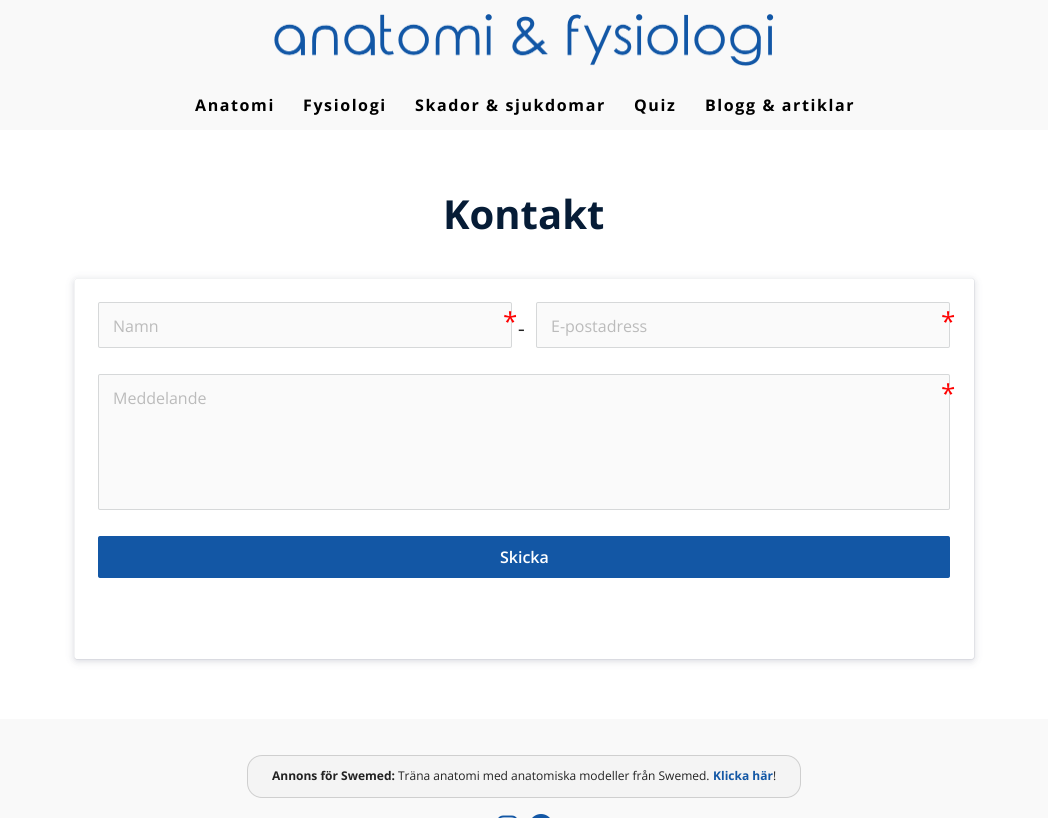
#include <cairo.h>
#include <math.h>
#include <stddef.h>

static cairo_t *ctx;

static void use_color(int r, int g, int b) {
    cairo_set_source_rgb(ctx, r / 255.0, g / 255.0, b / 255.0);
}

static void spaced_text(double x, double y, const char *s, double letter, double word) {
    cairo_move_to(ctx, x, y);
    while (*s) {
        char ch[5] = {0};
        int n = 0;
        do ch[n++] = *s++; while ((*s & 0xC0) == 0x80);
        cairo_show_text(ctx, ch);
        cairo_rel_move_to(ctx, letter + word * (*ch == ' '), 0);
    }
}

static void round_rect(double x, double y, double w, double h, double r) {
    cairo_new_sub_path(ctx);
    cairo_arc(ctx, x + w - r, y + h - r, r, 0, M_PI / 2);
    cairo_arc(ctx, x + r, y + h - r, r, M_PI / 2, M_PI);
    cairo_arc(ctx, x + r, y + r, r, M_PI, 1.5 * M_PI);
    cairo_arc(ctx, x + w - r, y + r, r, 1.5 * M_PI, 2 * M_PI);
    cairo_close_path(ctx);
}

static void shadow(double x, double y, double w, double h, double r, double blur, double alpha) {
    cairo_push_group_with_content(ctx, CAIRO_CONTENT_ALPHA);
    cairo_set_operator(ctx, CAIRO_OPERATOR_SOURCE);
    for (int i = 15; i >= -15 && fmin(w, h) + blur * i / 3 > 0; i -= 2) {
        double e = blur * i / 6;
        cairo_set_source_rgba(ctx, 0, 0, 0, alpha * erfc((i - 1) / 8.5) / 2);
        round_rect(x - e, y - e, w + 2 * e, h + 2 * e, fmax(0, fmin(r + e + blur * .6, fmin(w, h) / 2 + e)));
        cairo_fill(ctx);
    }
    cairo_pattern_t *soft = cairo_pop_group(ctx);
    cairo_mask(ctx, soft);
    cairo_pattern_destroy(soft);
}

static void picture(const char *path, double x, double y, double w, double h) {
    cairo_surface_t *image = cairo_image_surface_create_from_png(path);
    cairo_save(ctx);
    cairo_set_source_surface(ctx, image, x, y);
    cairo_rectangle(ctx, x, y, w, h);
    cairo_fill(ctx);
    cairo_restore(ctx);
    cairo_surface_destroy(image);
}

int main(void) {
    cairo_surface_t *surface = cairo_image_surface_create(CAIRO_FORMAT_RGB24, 1048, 818);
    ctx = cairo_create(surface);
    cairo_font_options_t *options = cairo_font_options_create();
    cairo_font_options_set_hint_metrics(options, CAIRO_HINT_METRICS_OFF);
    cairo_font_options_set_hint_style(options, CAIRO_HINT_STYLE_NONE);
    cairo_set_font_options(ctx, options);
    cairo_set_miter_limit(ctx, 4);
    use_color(255, 255, 255);
    cairo_paint(ctx);
    use_color(249, 249, 249);
    cairo_rectangle(ctx, 0, 0, 1048, 130);
    cairo_fill(ctx);
    picture("img1.png", 274, 14, 500, 52);
    cairo_select_font_face(ctx, "Open Sans", CAIRO_FONT_SLANT_NORMAL, CAIRO_FONT_WEIGHT_BOLD);
    cairo_set_font_size(ctx, 16);
    use_color(0, 0, 0);
    spaced_text(195, 111, "Anatomi", 1.6, 0);
    spaced_text(303, 111, "Fysiologi", 1.6, 0);
    spaced_text(415, 111, "Skador & sjukdomar", 1.6, 0);
    spaced_text(634, 111, "Quiz", 1.6, 0);
    spaced_text(705, 111, "Blogg & artiklar", 1.6, 0);
    cairo_set_font_size(ctx, 40);
    use_color(6, 28, 54);
    cairo_move_to(ctx, 443, 229);
    cairo_show_text(ctx, "Kontakt");
    cairo_save(ctx);
    cairo_set_fill_rule(ctx, CAIRO_FILL_RULE_EVEN_ODD);
    cairo_new_path(ctx);
    cairo_move_to(ctx, 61, 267);
    cairo_line_to(ctx, 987, 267);
    cairo_line_to(ctx, 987, 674);
    cairo_line_to(ctx, 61, 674);
    cairo_close_path(ctx);
    cairo_move_to(ctx, 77, 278);
    cairo_line_to(ctx, 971, 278);
    cairo_curve_to(ctx, 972.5, 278, 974, 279.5, 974, 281);
    cairo_line_to(ctx, 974, 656);
    cairo_curve_to(ctx, 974, 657.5, 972.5, 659, 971, 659);
    cairo_line_to(ctx, 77, 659);
    cairo_curve_to(ctx, 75.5, 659, 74, 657.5, 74, 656);
    cairo_line_to(ctx, 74, 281);
    cairo_curve_to(ctx, 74, 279.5, 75.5, 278, 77, 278);
    cairo_close_path(ctx);
    cairo_clip(ctx);
    use_color(50, 55, 90);
    shadow(74, 280, 900, 381, 3, 4, 0.2);
    cairo_restore(ctx);
    round_rect(74.25, 278.25, 900.5, 381.5, 3.75);
    cairo_set_source_rgba(ctx, 0, 0.078, 0.157, 0.1);
    cairo_set_line_width(ctx, 0.5);
    cairo_stroke(ctx);
    use_color(250, 250, 250);
    round_rect(98.5, 302.5, 413, 45, 1.5);
    cairo_fill_preserve(ctx);
    use_color(214, 216, 217);
    cairo_set_line_width(ctx, 1);
    cairo_stroke(ctx);
    cairo_select_font_face(ctx, "Open Sans", CAIRO_FONT_SLANT_NORMAL, CAIRO_FONT_WEIGHT_NORMAL);
    cairo_set_font_size(ctx, 26);
    use_color(255, 0, 0);
    spaced_text(503, 331, "*", -4, 0);
    cairo_set_font_size(ctx, 16);
    use_color(187, 187, 187);
    cairo_move_to(ctx, 113, 332);
    cairo_show_text(ctx, "Namn");
    cairo_select_font_face(ctx, "Liberation Serif", CAIRO_FONT_SLANT_NORMAL, CAIRO_FONT_WEIGHT_NORMAL);
    cairo_set_font_size(ctx, 20);
    use_color(34, 34, 34);
    cairo_move_to(ctx, 518, 335);
    cairo_show_text(ctx, "-");
    use_color(250, 250, 250);
    round_rect(536.5, 302.5, 413, 45, 1.5);
    cairo_fill_preserve(ctx);
    use_color(214, 216, 217);
    cairo_stroke(ctx);
    cairo_select_font_face(ctx, "Open Sans", CAIRO_FONT_SLANT_NORMAL, CAIRO_FONT_WEIGHT_NORMAL);
    cairo_set_font_size(ctx, 26);
    use_color(255, 0, 0);
    spaced_text(941, 331, "*", -4, 0);
    cairo_set_font_size(ctx, 16);
    use_color(187, 187, 187);
    cairo_move_to(ctx, 551, 332);
    cairo_show_text(ctx, "E-postadress");
    use_color(250, 250, 250);
    round_rect(98.5, 374.5, 851, 135, 1.5);
    cairo_fill_preserve(ctx);
    use_color(214, 216, 217);
    cairo_stroke(ctx);
    cairo_set_font_size(ctx, 26);
    use_color(255, 0, 0);
    spaced_text(941, 403, "*", -4, 0);
    cairo_set_font_size(ctx, 16);
    use_color(187, 187, 187);
    cairo_move_to(ctx, 113, 404);
    cairo_show_text(ctx, "Meddelande");
    use_color(19, 87, 165);
    round_rect(98, 536, 852, 42, 2);
    cairo_fill(ctx);
    cairo_select_font_face(ctx, "Open Sans SemiBold", CAIRO_FONT_SLANT_NORMAL, CAIRO_FONT_WEIGHT_NORMAL);
    use_color(255, 255, 255);
    cairo_move_to(ctx, 500, 563);
    cairo_show_text(ctx, "Skicka");
    use_color(249, 249, 249);
    cairo_rectangle(ctx, 0, 719, 1048, 99);
    cairo_fill(ctx);
    use_color(244, 244, 244);
    round_rect(247.5, 755.5, 553, 42, 14.5);
    cairo_fill_preserve(ctx);
    use_color(207, 207, 207);
    cairo_stroke(ctx);
    cairo_select_font_face(ctx, "Open Sans", CAIRO_FONT_SLANT_NORMAL, CAIRO_FONT_WEIGHT_BOLD);
    cairo_set_font_size(ctx, 12);
    use_color(34, 34, 34);
    cairo_move_to(ctx, 272, 780);
    cairo_show_text(ctx, "Annons för Swemed:");
    cairo_select_font_face(ctx, "Open Sans", CAIRO_FONT_SLANT_NORMAL, CAIRO_FONT_WEIGHT_NORMAL);
    cairo_move_to(ctx, 398, 780);
    cairo_show_text(ctx, "Träna anatomi med anatomiska modeller från Swemed.");
    cairo_select_font_face(ctx, "Open Sans", CAIRO_FONT_SLANT_NORMAL, CAIRO_FONT_WEIGHT_BOLD);
    use_color(19, 87, 165);
    cairo_move_to(ctx, 713, 780);
    cairo_show_text(ctx, "Klicka här");
    cairo_select_font_face(ctx, "Open Sans", CAIRO_FONT_SLANT_NORMAL, CAIRO_FONT_WEIGHT_NORMAL);
    use_color(34, 34, 34);
    cairo_move_to(ctx, 773, 780);
    cairo_show_text(ctx, "!");
    picture("img2.png", 498, 815, 19, 3);
    picture("img3.png", 532, 814, 18, 4);
    cairo_surface_write_to_png(surface, "result.png");
    cairo_font_options_destroy(options);
    cairo_destroy(ctx);
    cairo_surface_destroy(surface);
    return 0;
}
